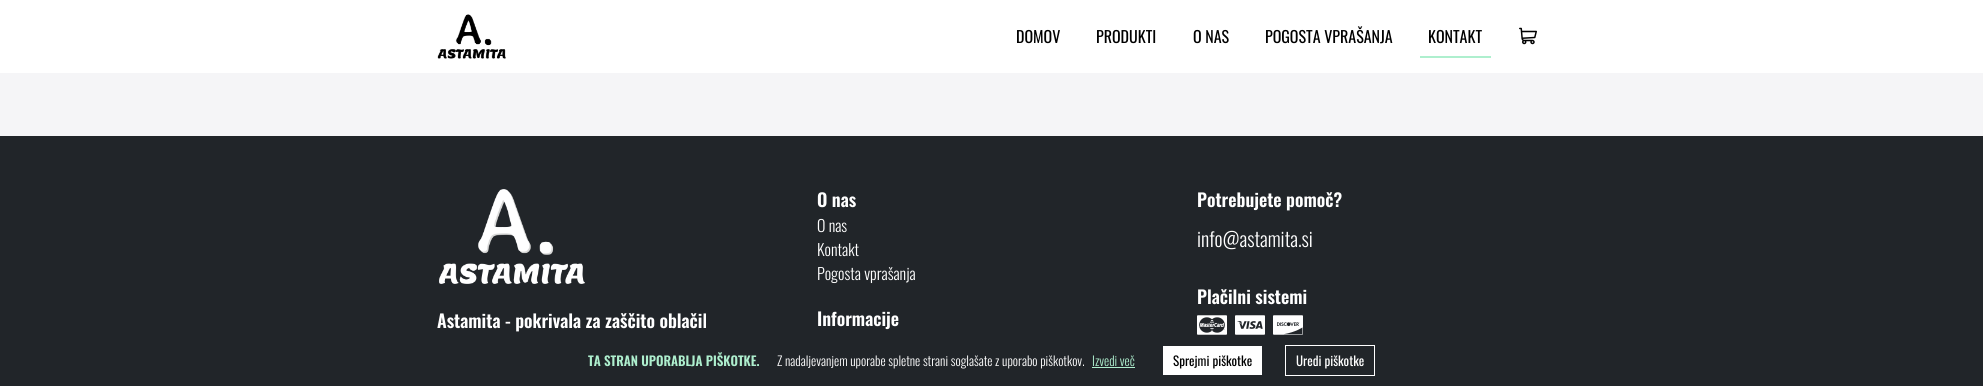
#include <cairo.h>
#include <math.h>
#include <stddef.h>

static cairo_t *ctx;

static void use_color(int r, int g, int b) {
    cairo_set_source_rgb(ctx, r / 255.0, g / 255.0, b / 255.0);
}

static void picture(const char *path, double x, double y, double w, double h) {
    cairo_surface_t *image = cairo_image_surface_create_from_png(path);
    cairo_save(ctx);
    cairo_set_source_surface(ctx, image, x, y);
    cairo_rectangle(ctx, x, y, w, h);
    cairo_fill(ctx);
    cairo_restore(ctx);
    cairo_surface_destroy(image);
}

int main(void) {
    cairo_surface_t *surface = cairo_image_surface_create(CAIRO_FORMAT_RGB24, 1983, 386);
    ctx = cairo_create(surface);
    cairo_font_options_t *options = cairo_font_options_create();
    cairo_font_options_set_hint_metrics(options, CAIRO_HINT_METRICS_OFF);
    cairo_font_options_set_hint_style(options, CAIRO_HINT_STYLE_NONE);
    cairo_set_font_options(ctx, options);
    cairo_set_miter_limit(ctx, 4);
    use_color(245, 245, 247);
    cairo_paint(ctx);
    use_color(255, 255, 255);
    cairo_rectangle(ctx, 0, 0, 1983, 73);
    cairo_fill(ctx);
    picture("img1.png", 437, 14, 69, 45);
    cairo_select_font_face(ctx, "Oswald", CAIRO_FONT_SLANT_NORMAL, CAIRO_FONT_WEIGHT_NORMAL);
    cairo_set_font_size(ctx, 16);
    use_color(0, 0, 0);
    cairo_move_to(ctx, 1016, 43);
    cairo_show_text(ctx, "DOMOV");
    cairo_move_to(ctx, 1096, 43);
    cairo_show_text(ctx, "PRODUKTI");
    cairo_move_to(ctx, 1193, 43);
    cairo_show_text(ctx, "O NAS");
    cairo_move_to(ctx, 1265, 43);
    cairo_show_text(ctx, "POGOSTA VPRAŠANJA");
    use_color(174, 239, 206);
    cairo_rectangle(ctx, 1420, 56, 71, 2);
    cairo_fill(ctx);
    use_color(0, 0, 0);
    cairo_move_to(ctx, 1428, 43);
    cairo_show_text(ctx, "KONTAKT");
    picture("img2.png", 1519, 27, 18, 18);
    use_color(33, 37, 41);
    cairo_rectangle(ctx, 0, 136, 1983, 250);
    cairo_fill(ctx);
    cairo_select_font_face(ctx, "Oswald SemiBold", CAIRO_FONT_SLANT_NORMAL, CAIRO_FONT_WEIGHT_NORMAL);
    cairo_set_font_size(ctx, 18);
    use_color(255, 255, 255);
    cairo_move_to(ctx, 817, 207);
    cairo_show_text(ctx, "O nas");
    cairo_select_font_face(ctx, "Oswald Light", CAIRO_FONT_SLANT_NORMAL, CAIRO_FONT_WEIGHT_NORMAL);
    cairo_set_font_size(ctx, 16);
    cairo_move_to(ctx, 817, 232);
    cairo_show_text(ctx, "O nas");
    cairo_move_to(ctx, 817, 256);
    cairo_show_text(ctx, "Kontakt");
    cairo_move_to(ctx, 817, 280);
    cairo_show_text(ctx, "Pogosta vprašanja");
    cairo_select_font_face(ctx, "Oswald SemiBold", CAIRO_FONT_SLANT_NORMAL, CAIRO_FONT_WEIGHT_NORMAL);
    cairo_set_font_size(ctx, 18);
    cairo_move_to(ctx, 817, 326);
    cairo_show_text(ctx, "Informacije");
    cairo_move_to(ctx, 1197, 207);
    cairo_show_text(ctx, "Potrebujete pomoč?");
    cairo_select_font_face(ctx, "Oswald Light", CAIRO_FONT_SLANT_NORMAL, CAIRO_FONT_WEIGHT_NORMAL);
    cairo_set_font_size(ctx, 20);
    cairo_move_to(ctx, 1197, 247);
    cairo_show_text(ctx, "info@astamita.si");
    cairo_select_font_face(ctx, "Oswald SemiBold", CAIRO_FONT_SLANT_NORMAL, CAIRO_FONT_WEIGHT_NORMAL);
    cairo_set_font_size(ctx, 18);
    cairo_move_to(ctx, 1197, 304);
    cairo_show_text(ctx, "Plačilni sistemi");
    picture("img3.png", 1197, 315, 30, 20);
    picture("img4.png", 1235, 315, 30, 20);
    picture("img5.png", 1273, 315, 30, 20);
    picture("img6.png", 439, 189, 146, 95);
    cairo_move_to(ctx, 437, 328);
    cairo_show_text(ctx, "Astamita - pokrivala za zaščito oblačil");
    cairo_set_font_size(ctx, 13);
    use_color(174, 239, 206);
    cairo_move_to(ctx, 588, 366);
    cairo_show_text(ctx, "TA STRAN UPORABLJA PIŠKOTKE.");
    cairo_select_font_face(ctx, "Oswald Light", CAIRO_FONT_SLANT_NORMAL, CAIRO_FONT_WEIGHT_NORMAL);
    use_color(255, 255, 255);
    cairo_move_to(ctx, 777, 366);
    cairo_show_text(ctx, "Z nadaljevanjem uporabe spletne strani soglašate z uporabo piškotkov.");
    use_color(174, 239, 206);
    cairo_move_to(ctx, 1092, 366);
    cairo_show_text(ctx, "Izvedi več");
    cairo_rectangle(ctx, 1092, 367, 43, 1);
    cairo_fill(ctx);
    use_color(255, 255, 255);
    cairo_rectangle(ctx, 1163, 346, 99, 29);
    cairo_fill(ctx);
    cairo_select_font_face(ctx, "Oswald", CAIRO_FONT_SLANT_NORMAL, CAIRO_FONT_WEIGHT_NORMAL);
    use_color(0, 0, 0);
    cairo_move_to(ctx, 1173, 366);
    cairo_show_text(ctx, "Sprejmi piškotke");
    cairo_rectangle(ctx, 1285.5, 345.5, 89, 30);
    use_color(255, 255, 255);
    cairo_set_line_width(ctx, 1);
    cairo_stroke(ctx);
    cairo_move_to(ctx, 1296, 366);
    cairo_show_text(ctx, "Uredi piškotke");
    cairo_surface_write_to_png(surface, "result.png");
    cairo_font_options_destroy(options);
    cairo_destroy(ctx);
    cairo_surface_destroy(surface);
    return 0;
}
